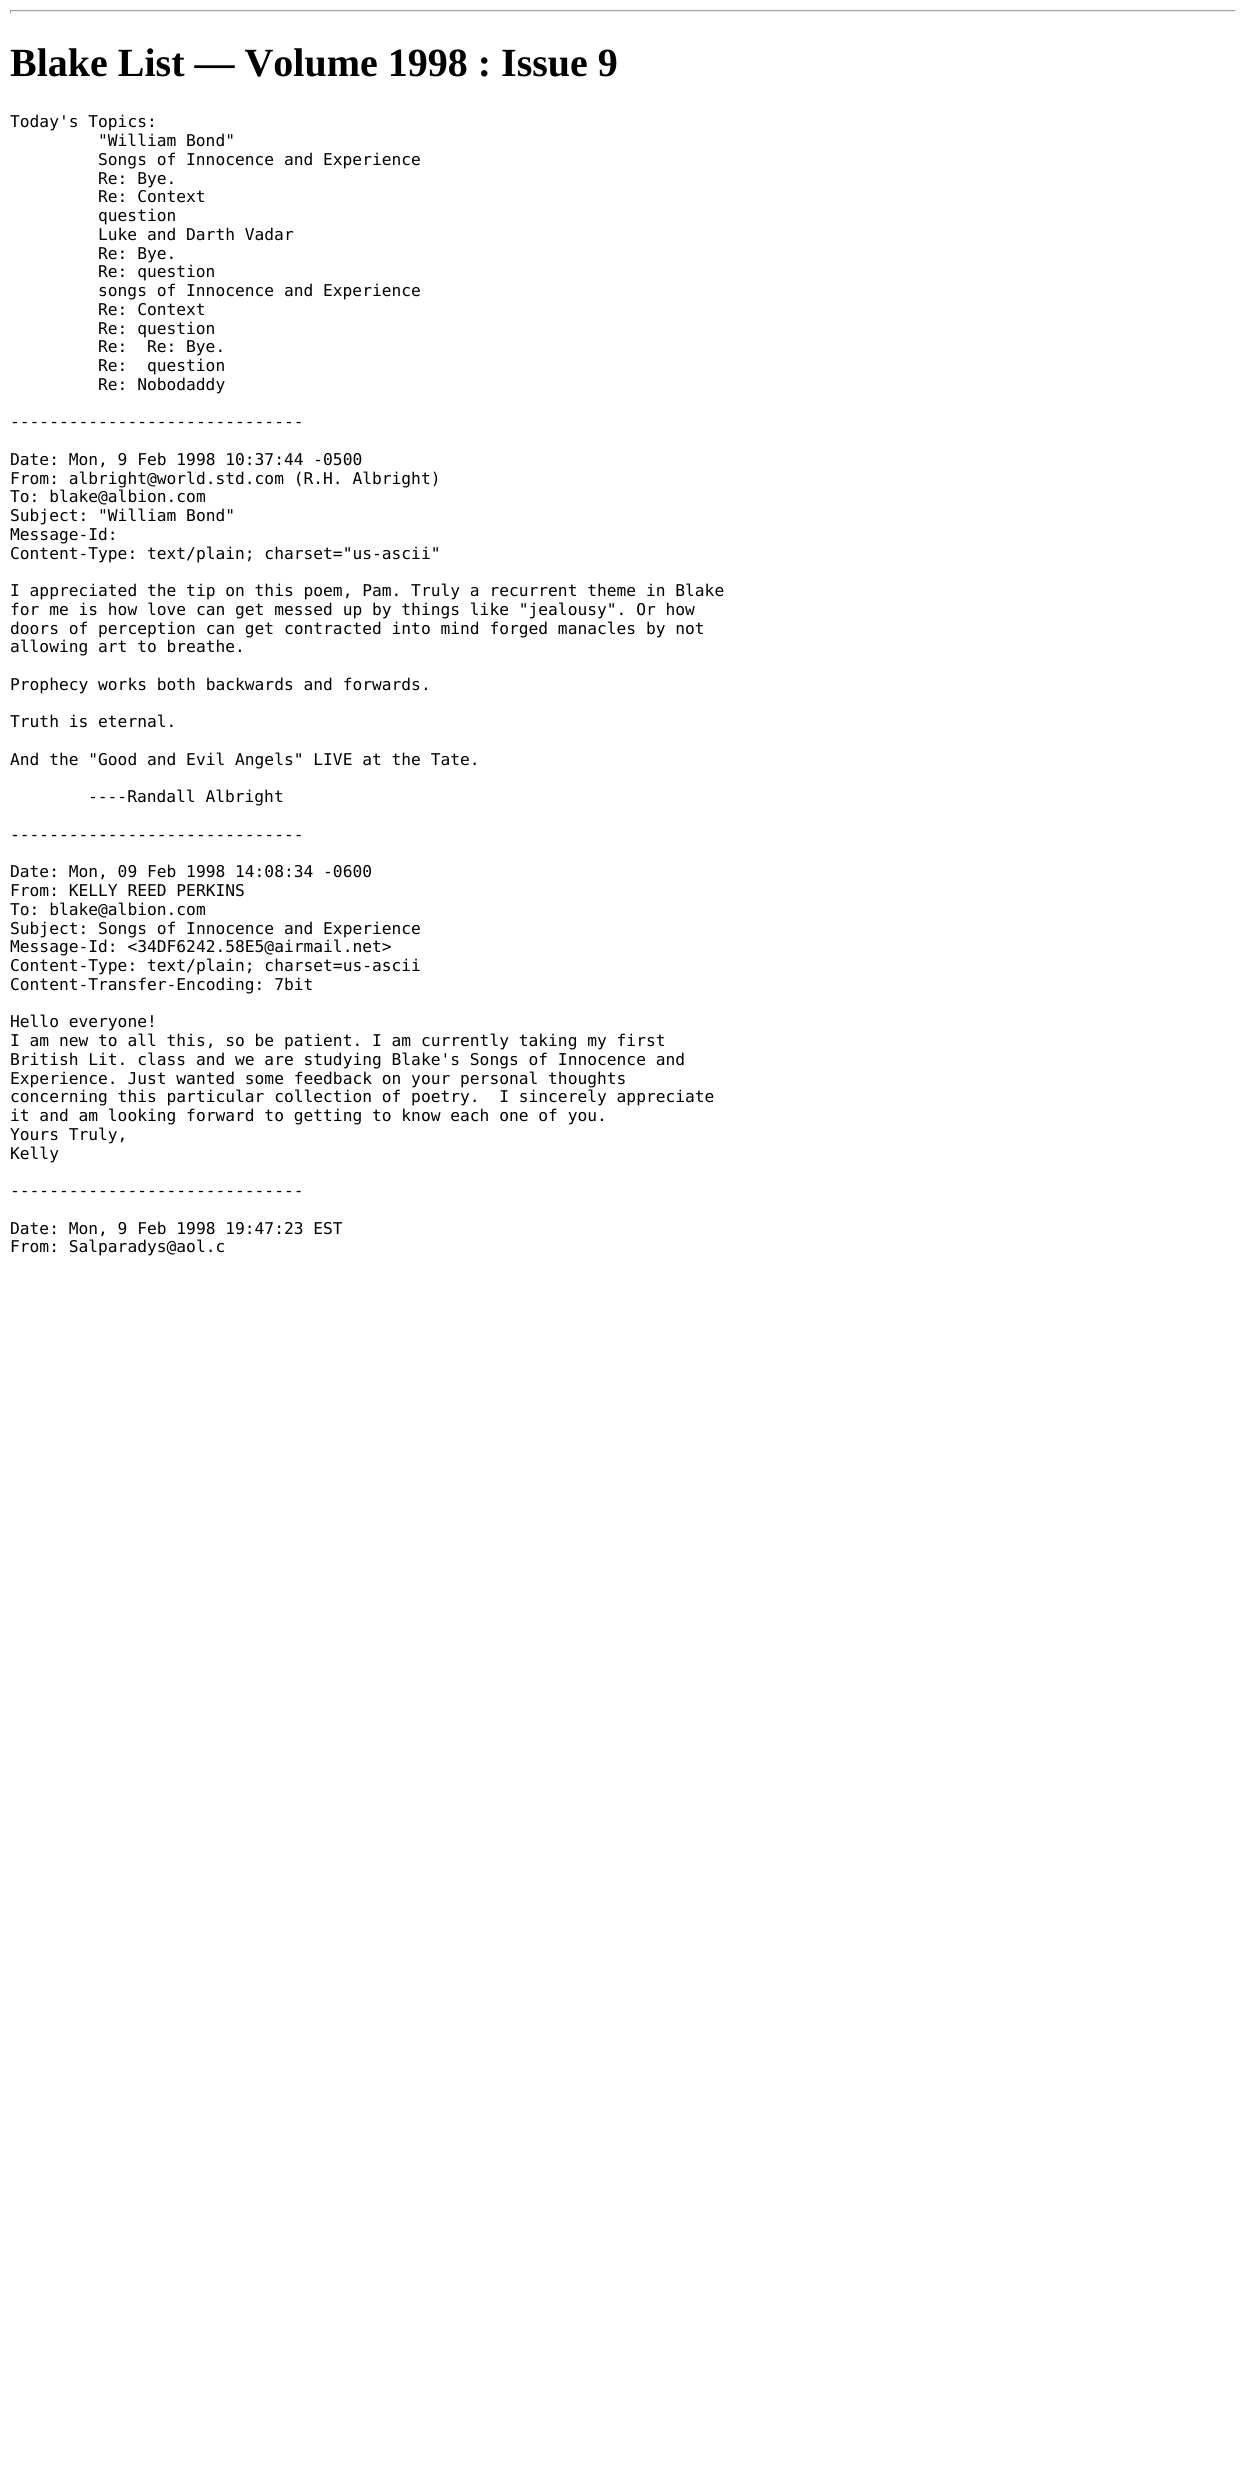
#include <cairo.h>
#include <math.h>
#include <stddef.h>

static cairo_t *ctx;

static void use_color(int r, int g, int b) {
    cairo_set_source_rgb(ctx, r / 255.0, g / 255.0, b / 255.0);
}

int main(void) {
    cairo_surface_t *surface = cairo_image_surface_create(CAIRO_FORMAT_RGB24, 1246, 2473);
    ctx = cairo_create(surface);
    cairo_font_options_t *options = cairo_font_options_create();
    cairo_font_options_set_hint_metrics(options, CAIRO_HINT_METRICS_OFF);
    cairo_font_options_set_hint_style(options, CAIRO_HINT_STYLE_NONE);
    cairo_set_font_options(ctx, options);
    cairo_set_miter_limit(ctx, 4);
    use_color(255, 255, 255);
    cairo_paint(ctx);
    use_color(159, 159, 159);
    cairo_rectangle(ctx, 10, 10, 1226, 1);
    cairo_fill(ctx);
    use_color(238, 238, 238);
    cairo_rectangle(ctx, 1235, 10, 1, 3);
    cairo_fill(ctx);
    cairo_rectangle(ctx, 10, 11, 1226, 1);
    cairo_fill(ctx);
    use_color(159, 159, 159);
    cairo_rectangle(ctx, 10, 10, 1, 3);
    cairo_fill(ctx);
    cairo_select_font_face(ctx, "Liberation Serif", CAIRO_FONT_SLANT_NORMAL, CAIRO_FONT_WEIGHT_BOLD);
    cairo_set_font_size(ctx, 40);
    use_color(0, 0, 0);
    cairo_move_to(ctx, 10, 76);
    cairo_show_text(ctx, "Blake List — Volume 1998 : Issue 9");
    cairo_select_font_face(ctx, "DejaVu Sans Mono", CAIRO_FONT_SLANT_NORMAL, CAIRO_FONT_WEIGHT_NORMAL);
    cairo_set_font_size(ctx, 16.25);
    cairo_move_to(ctx, 10, 127);
    cairo_show_text(ctx, "Today's Topics:");
    cairo_move_to(ctx, 98, 146);
    cairo_show_text(ctx, "\"William Bond\"");
    cairo_move_to(ctx, 98, 165);
    cairo_show_text(ctx, "Songs of Innocence and Experience");
    cairo_move_to(ctx, 98, 184);
    cairo_show_text(ctx, "Re: Bye.");
    cairo_move_to(ctx, 98, 202);
    cairo_show_text(ctx, "Re: Context");
    cairo_move_to(ctx, 98, 221);
    cairo_show_text(ctx, "question");
    cairo_move_to(ctx, 98, 240);
    cairo_show_text(ctx, "Luke and Darth Vadar");
    cairo_move_to(ctx, 98, 259);
    cairo_show_text(ctx, "Re: Bye.");
    cairo_move_to(ctx, 98, 277);
    cairo_show_text(ctx, "Re: question");
    cairo_move_to(ctx, 98, 296);
    cairo_show_text(ctx, "songs of Innocence and Experience");
    cairo_move_to(ctx, 98, 315);
    cairo_show_text(ctx, "Re: Context");
    cairo_move_to(ctx, 98, 334);
    cairo_show_text(ctx, "Re: question");
    cairo_move_to(ctx, 98, 352);
    cairo_show_text(ctx, "Re:  Re: Bye.");
    cairo_move_to(ctx, 98, 371);
    cairo_show_text(ctx, "Re:  question");
    cairo_move_to(ctx, 98, 390);
    cairo_show_text(ctx, "Re: Nobodaddy");
    cairo_move_to(ctx, 10, 427);
    cairo_show_text(ctx, "------------------------------");
    cairo_move_to(ctx, 10, 465);
    cairo_show_text(ctx, "Date: Mon, 9 Feb 1998 10:37:44 -0500");
    cairo_move_to(ctx, 10, 484);
    cairo_show_text(ctx, "From: albright@world.std.com (R.H. Albright)");
    cairo_move_to(ctx, 10, 502);
    cairo_show_text(ctx, "To: blake@albion.com");
    cairo_move_to(ctx, 10, 521);
    cairo_show_text(ctx, "Subject: \"William Bond\"");
    cairo_move_to(ctx, 10, 540);
    cairo_show_text(ctx, "Message-Id:");
    cairo_move_to(ctx, 10, 559);
    cairo_show_text(ctx, "Content-Type: text/plain; charset=\"us-ascii\"");
    cairo_move_to(ctx, 10, 596);
    cairo_show_text(ctx, "I appreciated the tip on this poem, Pam. Truly a recurrent theme in Blake");
    cairo_move_to(ctx, 10, 615);
    cairo_show_text(ctx, "for me is how love can get messed up by things like \"jealousy\". Or how");
    cairo_move_to(ctx, 10, 634);
    cairo_show_text(ctx, "doors of perception can get contracted into mind forged manacles by not");
    cairo_move_to(ctx, 10, 652);
    cairo_show_text(ctx, "allowing art to breathe.");
    cairo_move_to(ctx, 10, 690);
    cairo_show_text(ctx, "Prophecy works both backwards and forwards.");
    cairo_move_to(ctx, 10, 727);
    cairo_show_text(ctx, "Truth is eternal.");
    cairo_move_to(ctx, 10, 765);
    cairo_show_text(ctx, "And the \"Good and Evil Angels\" LIVE at the Tate.");
    cairo_move_to(ctx, 88, 802);
    cairo_show_text(ctx, "----Randall Albright");
    cairo_move_to(ctx, 10, 840);
    cairo_show_text(ctx, "------------------------------");
    cairo_move_to(ctx, 10, 877);
    cairo_show_text(ctx, "Date: Mon, 09 Feb 1998 14:08:34 -0600");
    cairo_move_to(ctx, 10, 896);
    cairo_show_text(ctx, "From: KELLY REED PERKINS");
    cairo_move_to(ctx, 10, 915);
    cairo_show_text(ctx, "To: blake@albion.com");
    cairo_move_to(ctx, 10, 934);
    cairo_show_text(ctx, "Subject: Songs of Innocence and Experience");
    cairo_move_to(ctx, 10, 952);
    cairo_show_text(ctx, "Message-Id: <34DF6242.58E5@airmail.net>");
    cairo_move_to(ctx, 10, 971);
    cairo_show_text(ctx, "Content-Type: text/plain; charset=us-ascii");
    cairo_move_to(ctx, 10, 990);
    cairo_show_text(ctx, "Content-Transfer-Encoding: 7bit");
    cairo_move_to(ctx, 10, 1027);
    cairo_show_text(ctx, "Hello everyone!");
    cairo_move_to(ctx, 10, 1046);
    cairo_show_text(ctx, "I am new to all this, so be patient. I am currently taking my first");
    cairo_move_to(ctx, 10, 1065);
    cairo_show_text(ctx, "British Lit. class and we are studying Blake's Songs of Innocence and");
    cairo_move_to(ctx, 10, 1084);
    cairo_show_text(ctx, "Experience. Just wanted some feedback on your personal thoughts");
    cairo_move_to(ctx, 10, 1102);
    cairo_show_text(ctx, "concerning this particular collection of poetry.  I sincerely appreciate");
    cairo_move_to(ctx, 10, 1121);
    cairo_show_text(ctx, "it and am looking forward to getting to know each one of you.");
    cairo_move_to(ctx, 10, 1140);
    cairo_show_text(ctx, "Yours Truly,");
    cairo_move_to(ctx, 10, 1159);
    cairo_show_text(ctx, "Kelly");
    cairo_move_to(ctx, 10, 1196);
    cairo_show_text(ctx, "------------------------------");
    cairo_move_to(ctx, 10, 1234);
    cairo_show_text(ctx, "Date: Mon, 9 Feb 1998 19:47:23 EST");
    cairo_move_to(ctx, 10, 1252);
    cairo_show_text(ctx, "From: Salparadys@aol.c");
    cairo_surface_write_to_png(surface, "result.png");
    cairo_font_options_destroy(options);
    cairo_destroy(ctx);
    cairo_surface_destroy(surface);
    return 0;
}
